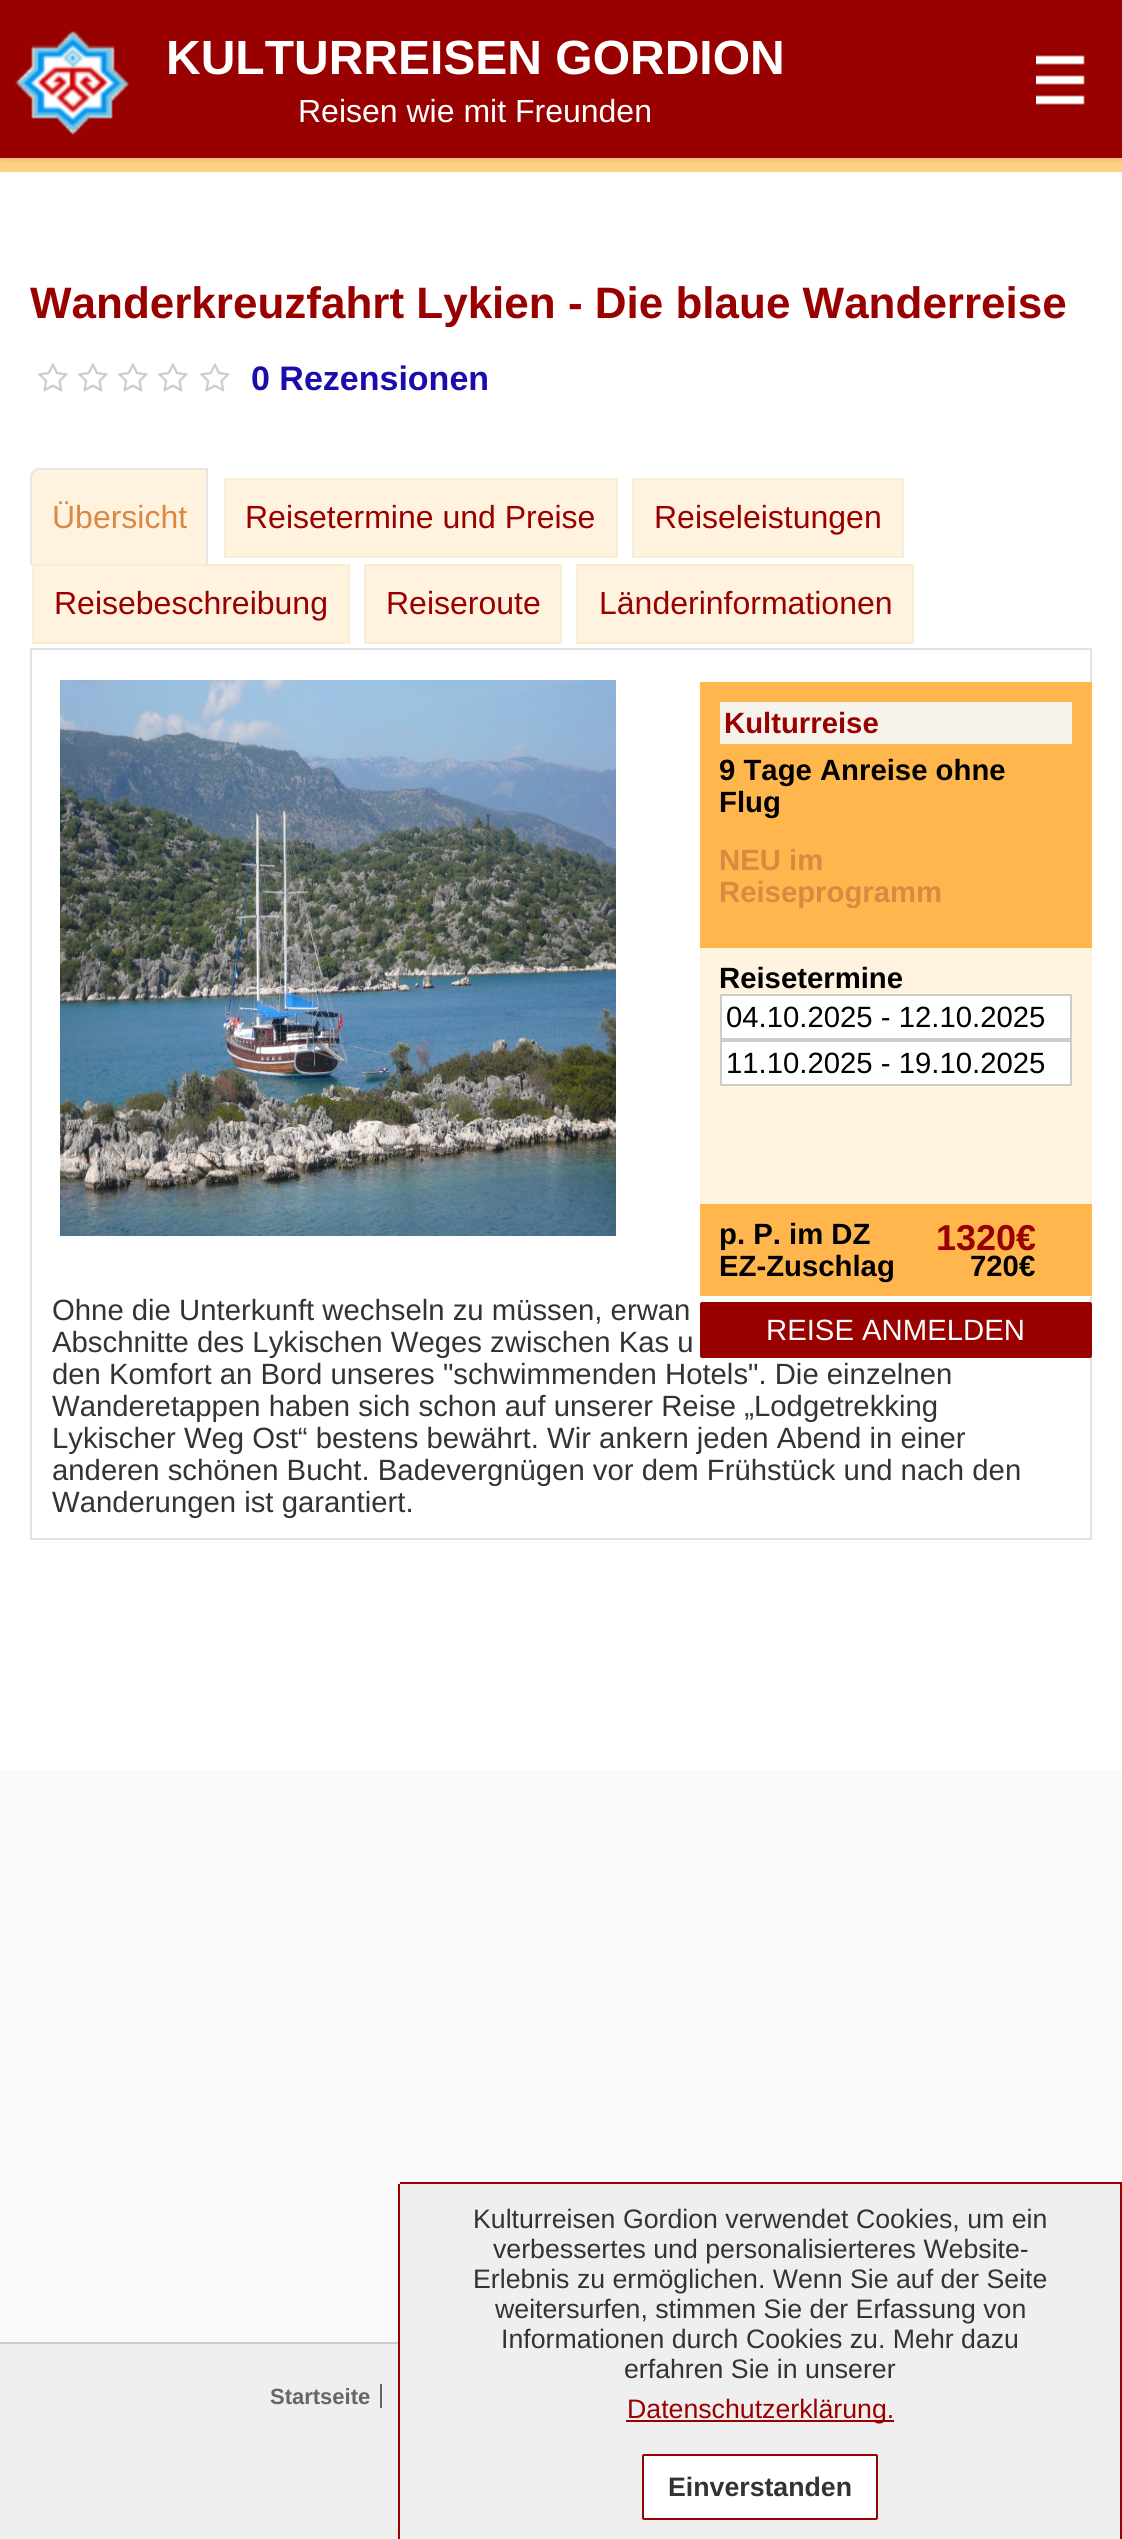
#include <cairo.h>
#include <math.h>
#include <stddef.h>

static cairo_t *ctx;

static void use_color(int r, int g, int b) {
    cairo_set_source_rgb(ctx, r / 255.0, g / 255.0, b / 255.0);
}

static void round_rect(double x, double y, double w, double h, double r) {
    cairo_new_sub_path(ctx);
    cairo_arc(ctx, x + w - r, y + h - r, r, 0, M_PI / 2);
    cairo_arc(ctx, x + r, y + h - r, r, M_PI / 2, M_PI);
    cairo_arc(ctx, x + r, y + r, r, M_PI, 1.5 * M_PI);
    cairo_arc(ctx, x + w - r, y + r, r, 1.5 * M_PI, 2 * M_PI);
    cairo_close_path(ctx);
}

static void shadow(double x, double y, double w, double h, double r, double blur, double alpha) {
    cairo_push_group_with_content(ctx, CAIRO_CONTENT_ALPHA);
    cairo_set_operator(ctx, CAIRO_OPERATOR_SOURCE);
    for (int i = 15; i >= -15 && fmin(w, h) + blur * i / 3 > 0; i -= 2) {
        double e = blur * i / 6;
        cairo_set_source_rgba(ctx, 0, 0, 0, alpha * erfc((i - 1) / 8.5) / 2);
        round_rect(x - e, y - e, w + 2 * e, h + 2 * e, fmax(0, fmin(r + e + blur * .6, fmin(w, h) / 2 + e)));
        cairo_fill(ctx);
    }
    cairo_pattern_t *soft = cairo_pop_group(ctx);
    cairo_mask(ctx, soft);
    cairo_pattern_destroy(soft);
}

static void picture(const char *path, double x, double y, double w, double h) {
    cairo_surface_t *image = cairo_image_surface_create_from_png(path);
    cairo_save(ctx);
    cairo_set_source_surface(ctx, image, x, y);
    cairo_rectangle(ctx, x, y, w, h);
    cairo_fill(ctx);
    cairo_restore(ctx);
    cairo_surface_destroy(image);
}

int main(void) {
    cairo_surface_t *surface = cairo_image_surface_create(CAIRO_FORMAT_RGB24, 1122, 2539);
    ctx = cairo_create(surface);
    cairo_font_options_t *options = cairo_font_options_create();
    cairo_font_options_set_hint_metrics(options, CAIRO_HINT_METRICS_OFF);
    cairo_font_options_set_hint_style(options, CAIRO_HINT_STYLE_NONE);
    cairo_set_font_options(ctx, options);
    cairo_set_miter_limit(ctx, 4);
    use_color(250, 250, 250);
    cairo_paint(ctx);
    use_color(255, 209, 128);
    cairo_rectangle(ctx, 0, 158, 1122, 14);
    cairo_fill(ctx);
    use_color(50, 50, 50);
    shadow(2, 2, 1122, 158, 0, 2, 0.11);
    use_color(153, 0, 0);
    cairo_rectangle(ctx, 0, 0, 1122, 158);
    cairo_fill(ctx);
    picture("img1.png", 15, 31, 114, 104);
    cairo_select_font_face(ctx, "Liberation Sans", CAIRO_FONT_SLANT_NORMAL, CAIRO_FONT_WEIGHT_BOLD);
    cairo_set_font_size(ctx, 48);
    use_color(255, 255, 255);
    cairo_move_to(ctx, 166, 74);
    cairo_show_text(ctx, "KULTURREISEN GORDION");
    cairo_select_font_face(ctx, "Liberation Sans", CAIRO_FONT_SLANT_NORMAL, CAIRO_FONT_WEIGHT_NORMAL);
    cairo_set_font_size(ctx, 32);
    cairo_move_to(ctx, 298, 122);
    cairo_show_text(ctx, "Reisen wie mit Freunden");
    picture("img2.png", 1036, 55, 49, 50);
    cairo_rectangle(ctx, 0, 172, 1122, 1598);
    cairo_fill(ctx);
    cairo_select_font_face(ctx, "Liberation Sans", CAIRO_FONT_SLANT_NORMAL, CAIRO_FONT_WEIGHT_BOLD);
    cairo_set_font_size(ctx, 44);
    use_color(153, 0, 0);
    cairo_move_to(ctx, 30, 318);
    cairo_show_text(ctx, "Wanderkreuzfahrt Lykien - Die blaue Wanderreise");
    picture("img3.png", 38, 363, 30, 29);
    picture("img3.png", 78, 363, 30, 29);
    picture("img3.png", 118, 363, 30, 29);
    picture("img3.png", 158, 363, 30, 29);
    picture("img3.png", 200, 363, 30, 29);
    cairo_set_font_size(ctx, 34);
    use_color(26, 13, 171);
    cairo_move_to(ctx, 251, 390);
    cairo_show_text(ctx, "0 Rezensionen");
    use_color(255, 243, 224);
    cairo_new_path(ctx);
    cairo_move_to(ctx, 40, 468);
    cairo_line_to(ctx, 208, 468);
    cairo_line_to(ctx, 208, 566);
    cairo_line_to(ctx, 30, 566);
    cairo_line_to(ctx, 30, 478);
    cairo_curve_to(ctx, 30, 472.5, 34.5, 468, 40, 468);
    cairo_close_path(ctx);
    cairo_fill(ctx);
    use_color(227, 231, 230);
    cairo_new_path(ctx);
    cairo_move_to(ctx, 40, 468);
    cairo_curve_to(ctx, 37, 468, 34, 469, 33, 471);
    cairo_line_to(ctx, 34, 472);
    cairo_curve_to(ctx, 36, 471, 38, 470, 40, 470);
    cairo_line_to(ctx, 206, 470);
    cairo_line_to(ctx, 208, 468);
    cairo_close_path(ctx);
    cairo_fill(ctx);
    cairo_new_path(ctx);
    cairo_move_to(ctx, 208, 468);
    cairo_line_to(ctx, 206, 470);
    cairo_line_to(ctx, 206, 564);
    cairo_line_to(ctx, 208, 566);
    cairo_close_path(ctx);
    cairo_fill(ctx);
    use_color(255, 255, 255);
    cairo_new_path(ctx);
    cairo_move_to(ctx, 208, 566);
    cairo_line_to(ctx, 206, 564);
    cairo_line_to(ctx, 32, 564);
    cairo_line_to(ctx, 30, 566);
    cairo_close_path(ctx);
    cairo_fill(ctx);
    use_color(227, 231, 230);
    cairo_new_path(ctx);
    cairo_move_to(ctx, 30, 566);
    cairo_line_to(ctx, 32, 564);
    cairo_line_to(ctx, 32, 478);
    cairo_curve_to(ctx, 32, 476, 33, 474, 34, 472);
    cairo_line_to(ctx, 33, 471);
    cairo_curve_to(ctx, 31, 472, 30, 475, 30, 478);
    cairo_close_path(ctx);
    cairo_fill(ctx);
    cairo_select_font_face(ctx, "Liberation Sans", CAIRO_FONT_SLANT_NORMAL, CAIRO_FONT_WEIGHT_NORMAL);
    cairo_set_font_size(ctx, 32);
    use_color(219, 136, 66);
    cairo_move_to(ctx, 52, 528);
    cairo_show_text(ctx, "Übersicht");
    use_color(255, 243, 224);
    cairo_rectangle(ctx, 225, 479, 392, 78);
    cairo_fill_preserve(ctx);
    use_color(249, 238, 209);
    cairo_stroke(ctx);
    use_color(153, 0, 0);
    cairo_move_to(ctx, 245, 528);
    cairo_show_text(ctx, "Reisetermine und Preise");
    use_color(255, 243, 224);
    cairo_rectangle(ctx, 633, 479, 270, 78);
    cairo_fill_preserve(ctx);
    use_color(249, 238, 209);
    cairo_stroke(ctx);
    use_color(153, 0, 0);
    cairo_move_to(ctx, 654, 528);
    cairo_show_text(ctx, "Reiseleistungen");
    use_color(255, 243, 224);
    cairo_rectangle(ctx, 33, 565, 316, 78);
    cairo_fill_preserve(ctx);
    use_color(249, 238, 209);
    cairo_stroke(ctx);
    use_color(153, 0, 0);
    cairo_move_to(ctx, 54, 614);
    cairo_show_text(ctx, "Reisebeschreibung");
    use_color(255, 243, 224);
    cairo_rectangle(ctx, 365, 565, 196, 78);
    cairo_fill_preserve(ctx);
    use_color(249, 238, 209);
    cairo_stroke(ctx);
    use_color(153, 0, 0);
    cairo_move_to(ctx, 386, 614);
    cairo_show_text(ctx, "Reiseroute");
    use_color(255, 243, 224);
    cairo_rectangle(ctx, 577, 565, 336, 78);
    cairo_fill_preserve(ctx);
    use_color(249, 238, 209);
    cairo_stroke(ctx);
    use_color(153, 0, 0);
    cairo_move_to(ctx, 599, 614);
    cairo_show_text(ctx, "Länderinformationen");
    cairo_rectangle(ctx, 31, 649, 1060, 890);
    use_color(224, 228, 226);
    cairo_stroke(ctx);
    use_color(255, 183, 77);
    cairo_rectangle(ctx, 700, 682, 392, 266);
    cairo_fill(ctx);
    use_color(245, 243, 236);
    cairo_rectangle(ctx, 720, 702, 352, 42);
    cairo_fill(ctx);
    cairo_select_font_face(ctx, "Liberation Sans", CAIRO_FONT_SLANT_NORMAL, CAIRO_FONT_WEIGHT_BOLD);
    cairo_set_font_size(ctx, 29.3);
    use_color(153, 0, 0);
    cairo_move_to(ctx, 724, 733);
    cairo_show_text(ctx, "Kulturreise");
    use_color(0, 0, 0);
    cairo_move_to(ctx, 719, 780);
    cairo_show_text(ctx, "9 Tage Anreise ohne");
    cairo_move_to(ctx, 719, 812);
    cairo_show_text(ctx, "Flug");
    use_color(219, 136, 66);
    cairo_move_to(ctx, 719, 870);
    cairo_show_text(ctx, "NEU im");
    cairo_move_to(ctx, 719, 902);
    cairo_show_text(ctx, "Reiseprogramm");
    use_color(255, 243, 224);
    cairo_rectangle(ctx, 700, 948, 392, 256);
    cairo_fill(ctx);
    use_color(0, 0, 0);
    cairo_move_to(ctx, 719, 988);
    cairo_show_text(ctx, "Reisetermine");
    use_color(255, 255, 255);
    cairo_rectangle(ctx, 721, 995, 350, 44);
    cairo_fill_preserve(ctx);
    use_color(204, 204, 204);
    cairo_stroke(ctx);
    cairo_select_font_face(ctx, "Liberation Sans", CAIRO_FONT_SLANT_NORMAL, CAIRO_FONT_WEIGHT_NORMAL);
    use_color(0, 0, 0);
    cairo_move_to(ctx, 726, 1027);
    cairo_show_text(ctx, "04.10.2025 - 12.10.2025");
    use_color(255, 255, 255);
    cairo_rectangle(ctx, 721, 1041, 350, 44);
    cairo_fill_preserve(ctx);
    use_color(204, 204, 204);
    cairo_stroke(ctx);
    use_color(0, 0, 0);
    cairo_move_to(ctx, 726, 1073);
    cairo_show_text(ctx, "11.10.2025 - 19.10.2025");
    use_color(255, 183, 77);
    cairo_rectangle(ctx, 700, 1204, 392, 92);
    cairo_fill(ctx);
    cairo_select_font_face(ctx, "Liberation Sans", CAIRO_FONT_SLANT_NORMAL, CAIRO_FONT_WEIGHT_BOLD);
    use_color(0, 0, 0);
    cairo_move_to(ctx, 719, 1244);
    cairo_show_text(ctx, "p. P. im DZ");
    cairo_set_font_size(ctx, 36);
    use_color(153, 0, 0);
    cairo_move_to(ctx, 936, 1250);
    cairo_show_text(ctx, "1320€");
    cairo_set_font_size(ctx, 29.3);
    use_color(0, 0, 0);
    cairo_move_to(ctx, 719, 1276);
    cairo_show_text(ctx, "EZ-Zuschlag");
    cairo_move_to(ctx, 970, 1276);
    cairo_show_text(ctx, "720€");
    use_color(153, 0, 0);
    round_rect(700, 1302, 392, 56, 2);
    cairo_fill(ctx);
    cairo_select_font_face(ctx, "Liberation Sans", CAIRO_FONT_SLANT_NORMAL, CAIRO_FONT_WEIGHT_NORMAL);
    use_color(255, 255, 255);
    cairo_move_to(ctx, 766, 1340);
    cairo_show_text(ctx, "REISE ANMELDEN");
    picture("img4.png", 60, 680, 556, 556);
    use_color(51, 51, 51);
    cairo_move_to(ctx, 52, 1320);
    cairo_show_text(ctx, "Ohne die Unterkunft wechseln zu müssen, erwan");
    cairo_move_to(ctx, 52, 1352);
    cairo_show_text(ctx, "Abschnitte des Lykischen Weges zwischen Kas u");
    cairo_move_to(ctx, 52, 1384);
    cairo_show_text(ctx, "den Komfort an Bord unseres \"schwimmenden Hotels\". Die einzelnen");
    cairo_move_to(ctx, 52, 1416);
    cairo_show_text(ctx, "Wanderetappen haben sich schon auf unserer Reise „Lodgetrekking");
    cairo_move_to(ctx, 52, 1448);
    cairo_show_text(ctx, "Lykischer Weg Ost“ bestens bewährt. Wir ankern jeden Abend in einer");
    cairo_move_to(ctx, 52, 1480);
    cairo_show_text(ctx, "anderen schönen Bucht. Badevergnügen vor dem Frühstück und nach den");
    cairo_move_to(ctx, 52, 1512);
    cairo_show_text(ctx, "Wanderungen ist garantiert.");
    use_color(239, 239, 239);
    cairo_rectangle(ctx, 0, 2344, 398, 195);
    cairo_fill(ctx);
    use_color(204, 204, 204);
    cairo_rectangle(ctx, 0, 2342, 398, 2);
    cairo_fill(ctx);
    cairo_select_font_face(ctx, "Liberation Sans", CAIRO_FONT_SLANT_NORMAL, CAIRO_FONT_WEIGHT_BOLD);
    cairo_set_font_size(ctx, 22);
    use_color(102, 102, 102);
    cairo_move_to(ctx, 270, 2404);
    cairo_show_text(ctx, "Startseite");
    cairo_rectangle(ctx, 380, 2384, 2, 24);
    cairo_fill(ctx);
    use_color(239, 239, 239);
    round_rect(398, 2182, 724, 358, 2);
    cairo_fill(ctx);
    use_color(153, 0, 0);
    cairo_rectangle(ctx, 400, 2182, 722, 2);
    cairo_fill(ctx);
    cairo_rectangle(ctx, 1120, 2184, 2, 355);
    cairo_fill(ctx);
    cairo_rectangle(ctx, 398, 2184, 2, 355);
    cairo_fill(ctx);
    cairo_select_font_face(ctx, "Liberation Sans", CAIRO_FONT_SLANT_NORMAL, CAIRO_FONT_WEIGHT_NORMAL);
    cairo_set_font_size(ctx, 26.7);
    use_color(51, 51, 51);
    cairo_move_to(ctx, 473, 2228);
    cairo_show_text(ctx, "Kulturreisen Gordion verwendet Cookies, um ein");
    cairo_move_to(ctx, 493, 2258);
    cairo_show_text(ctx, "verbessertes und personalisierteres Website-");
    cairo_move_to(ctx, 473, 2288);
    cairo_show_text(ctx, "Erlebnis zu ermöglichen. Wenn Sie auf der Seite");
    cairo_move_to(ctx, 495, 2318);
    cairo_show_text(ctx, "weitersurfen, stimmen Sie der Erfassung von");
    cairo_move_to(ctx, 501, 2348);
    cairo_show_text(ctx, "Informationen durch Cookies zu. Mehr dazu");
    cairo_move_to(ctx, 624, 2378);
    cairo_show_text(ctx, "erfahren Sie in unserer");
    use_color(153, 0, 0);
    cairo_rectangle(ctx, 626, 2420, 268, 2);
    cairo_fill(ctx);
    cairo_move_to(ctx, 627, 2418);
    cairo_show_text(ctx, "Datenschutzerklärung.");
    use_color(255, 255, 255);
    round_rect(643, 2455, 234, 64, 1);
    cairo_fill_preserve(ctx);
    use_color(153, 0, 0);
    cairo_stroke(ctx);
    cairo_select_font_face(ctx, "Liberation Sans", CAIRO_FONT_SLANT_NORMAL, CAIRO_FONT_WEIGHT_BOLD);
    use_color(51, 51, 51);
    cairo_move_to(ctx, 668, 2496);
    cairo_show_text(ctx, "Einverstanden");
    cairo_surface_write_to_png(surface, "result.png");
    cairo_font_options_destroy(options);
    cairo_destroy(ctx);
    cairo_surface_destroy(surface);
    return 0;
}
